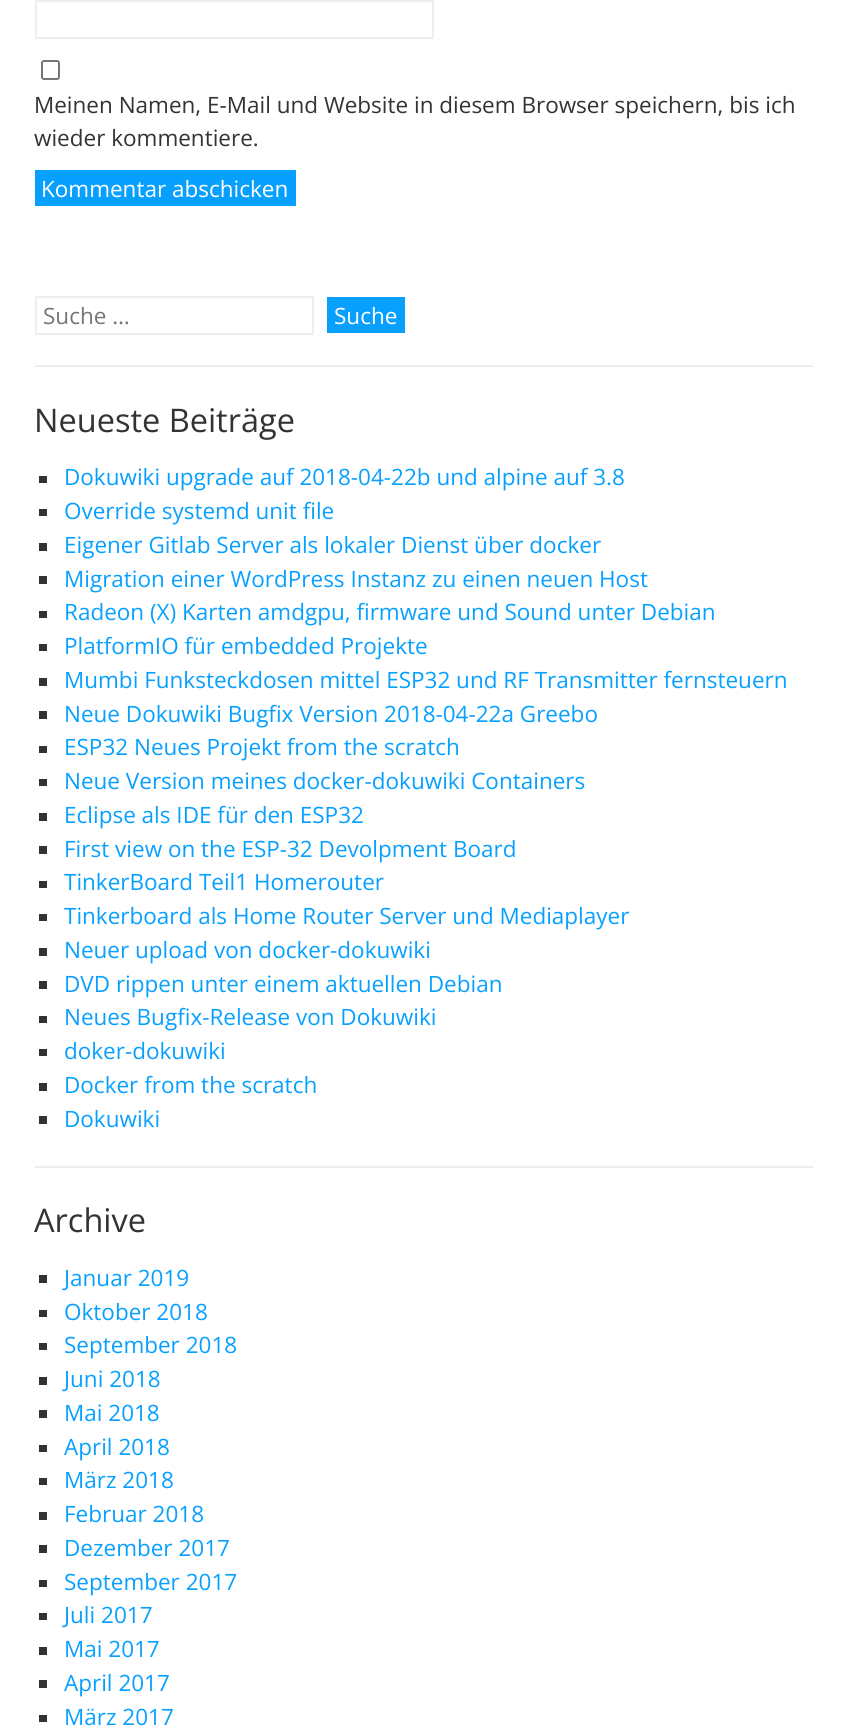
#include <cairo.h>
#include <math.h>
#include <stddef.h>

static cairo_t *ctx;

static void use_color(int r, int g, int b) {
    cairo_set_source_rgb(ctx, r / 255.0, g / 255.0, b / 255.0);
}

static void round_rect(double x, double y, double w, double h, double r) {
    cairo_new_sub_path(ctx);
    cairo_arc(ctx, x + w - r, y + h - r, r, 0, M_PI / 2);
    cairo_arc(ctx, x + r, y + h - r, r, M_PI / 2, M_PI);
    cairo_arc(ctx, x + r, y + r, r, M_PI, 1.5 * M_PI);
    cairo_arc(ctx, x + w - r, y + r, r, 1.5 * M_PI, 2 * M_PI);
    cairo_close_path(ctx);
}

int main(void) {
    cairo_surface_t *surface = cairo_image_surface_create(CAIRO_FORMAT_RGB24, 847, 1734);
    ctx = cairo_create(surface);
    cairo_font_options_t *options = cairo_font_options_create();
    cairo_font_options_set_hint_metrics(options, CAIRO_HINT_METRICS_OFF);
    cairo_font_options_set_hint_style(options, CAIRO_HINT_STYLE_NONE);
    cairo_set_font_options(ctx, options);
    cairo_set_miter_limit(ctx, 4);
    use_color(255, 255, 255);
    cairo_paint(ctx);
    cairo_rectangle(ctx, 36, 1, 397, 37);
    use_color(238, 238, 238);
    cairo_stroke(ctx);
    round_rect(42, 61, 17, 18, 2);
    use_color(118, 118, 118);
    cairo_stroke(ctx);
    cairo_select_font_face(ctx, "Open Sans", CAIRO_FONT_SLANT_NORMAL, CAIRO_FONT_WEIGHT_NORMAL);
    cairo_set_font_size(ctx, 22.5);
    use_color(51, 51, 51);
    cairo_move_to(ctx, 34, 113);
    cairo_show_text(ctx, "Meinen Namen, E-Mail und Website in diesem Browser speichern, bis ich");
    cairo_move_to(ctx, 34, 146);
    cairo_show_text(ctx, "wieder kommentiere.");
    use_color(8, 160, 255);
    cairo_rectangle(ctx, 35, 170, 261, 36);
    cairo_fill(ctx);
    use_color(255, 255, 255);
    cairo_move_to(ctx, 41, 197);
    cairo_show_text(ctx, "Kommentar abschicken");
    use_color(238, 238, 238);
    cairo_rectangle(ctx, 35, 365, 778, 2);
    cairo_fill(ctx);
    cairo_rectangle(ctx, 36, 297, 277, 37);
    cairo_stroke(ctx);
    use_color(117, 117, 117);
    cairo_move_to(ctx, 43, 324);
    cairo_show_text(ctx, "Suche …");
    use_color(8, 160, 255);
    cairo_rectangle(ctx, 327, 297, 78, 36);
    cairo_fill(ctx);
    use_color(255, 255, 255);
    cairo_move_to(ctx, 334, 324);
    cairo_show_text(ctx, "Suche");
    use_color(238, 238, 238);
    cairo_rectangle(ctx, 35, 1166, 778, 2);
    cairo_fill(ctx);
    cairo_set_font_size(ctx, 32.5);
    use_color(51, 51, 51);
    cairo_move_to(ctx, 34, 432);
    cairo_show_text(ctx, "Neueste Beiträge");
    cairo_rectangle(ctx, 39, 476, 8, 7);
    cairo_fill(ctx);
    cairo_set_font_size(ctx, 22.5);
    use_color(8, 160, 255);
    cairo_move_to(ctx, 64, 485);
    cairo_show_text(ctx, "Dokuwiki upgrade auf 2018-04-22b und alpine auf 3.8");
    use_color(51, 51, 51);
    cairo_rectangle(ctx, 39, 509, 8, 7);
    cairo_fill(ctx);
    use_color(8, 160, 255);
    cairo_move_to(ctx, 64, 519);
    cairo_show_text(ctx, "Override systemd unit file");
    use_color(51, 51, 51);
    cairo_rectangle(ctx, 39, 543, 8, 8);
    cairo_fill(ctx);
    use_color(8, 160, 255);
    cairo_move_to(ctx, 64, 553);
    cairo_show_text(ctx, "Eigener Gitlab Server als lokaler Dienst über docker");
    use_color(51, 51, 51);
    cairo_rectangle(ctx, 39, 576, 8, 8);
    cairo_fill(ctx);
    use_color(8, 160, 255);
    cairo_move_to(ctx, 64, 587);
    cairo_show_text(ctx, "Migration einer WordPress Instanz zu einen neuen Host");
    use_color(51, 51, 51);
    cairo_rectangle(ctx, 39, 611, 8, 7);
    cairo_fill(ctx);
    use_color(8, 160, 255);
    cairo_move_to(ctx, 64, 620);
    cairo_show_text(ctx, "Radeon (X) Karten amdgpu, firmware und Sound unter Debian");
    use_color(51, 51, 51);
    cairo_rectangle(ctx, 39, 644, 8, 7);
    cairo_fill(ctx);
    use_color(8, 160, 255);
    cairo_move_to(ctx, 64, 654);
    cairo_show_text(ctx, "PlatformIO für embedded Projekte");
    use_color(51, 51, 51);
    cairo_rectangle(ctx, 39, 678, 8, 8);
    cairo_fill(ctx);
    use_color(8, 160, 255);
    cairo_move_to(ctx, 64, 688);
    cairo_show_text(ctx, "Mumbi Funksteckdosen mittel ESP32 und RF Transmitter fernsteuern");
    use_color(51, 51, 51);
    cairo_rectangle(ctx, 39, 711, 8, 8);
    cairo_fill(ctx);
    use_color(8, 160, 255);
    cairo_move_to(ctx, 64, 722);
    cairo_show_text(ctx, "Neue Dokuwiki Bugfix Version 2018-04-22a Greebo");
    use_color(51, 51, 51);
    cairo_rectangle(ctx, 39, 746, 8, 7);
    cairo_fill(ctx);
    use_color(8, 160, 255);
    cairo_move_to(ctx, 64, 755);
    cairo_show_text(ctx, "ESP32 Neues Projekt from the scratch");
    use_color(51, 51, 51);
    cairo_rectangle(ctx, 39, 779, 8, 7);
    cairo_fill(ctx);
    use_color(8, 160, 255);
    cairo_move_to(ctx, 64, 789);
    cairo_show_text(ctx, "Neue Version meines docker-dokuwiki Containers");
    use_color(51, 51, 51);
    cairo_rectangle(ctx, 39, 813, 8, 8);
    cairo_fill(ctx);
    use_color(8, 160, 255);
    cairo_move_to(ctx, 64, 823);
    cairo_show_text(ctx, "Eclipse als IDE für den ESP32");
    use_color(51, 51, 51);
    cairo_rectangle(ctx, 39, 846, 8, 8);
    cairo_fill(ctx);
    use_color(8, 160, 255);
    cairo_move_to(ctx, 64, 857);
    cairo_show_text(ctx, "First view on the ESP-32 Devolpment Board");
    use_color(51, 51, 51);
    cairo_rectangle(ctx, 39, 881, 8, 7);
    cairo_fill(ctx);
    use_color(8, 160, 255);
    cairo_move_to(ctx, 64, 890);
    cairo_show_text(ctx, "TinkerBoard Teil1 Homerouter");
    use_color(51, 51, 51);
    cairo_rectangle(ctx, 39, 914, 8, 7);
    cairo_fill(ctx);
    use_color(8, 160, 255);
    cairo_move_to(ctx, 64, 924);
    cairo_show_text(ctx, "Tinkerboard als Home Router Server und Mediaplayer");
    use_color(51, 51, 51);
    cairo_rectangle(ctx, 39, 948, 8, 8);
    cairo_fill(ctx);
    use_color(8, 160, 255);
    cairo_move_to(ctx, 64, 958);
    cairo_show_text(ctx, "Neuer upload von docker-dokuwiki");
    use_color(51, 51, 51);
    cairo_rectangle(ctx, 39, 981, 8, 8);
    cairo_fill(ctx);
    use_color(8, 160, 255);
    cairo_move_to(ctx, 64, 992);
    cairo_show_text(ctx, "DVD rippen unter einem aktuellen Debian");
    use_color(51, 51, 51);
    cairo_rectangle(ctx, 39, 1016, 8, 7);
    cairo_fill(ctx);
    use_color(8, 160, 255);
    cairo_move_to(ctx, 64, 1025);
    cairo_show_text(ctx, "Neues Bugfix-Release von Dokuwiki");
    use_color(51, 51, 51);
    cairo_rectangle(ctx, 39, 1049, 8, 7);
    cairo_fill(ctx);
    use_color(8, 160, 255);
    cairo_move_to(ctx, 64, 1059);
    cairo_show_text(ctx, "doker-dokuwiki");
    use_color(51, 51, 51);
    cairo_rectangle(ctx, 39, 1083, 8, 8);
    cairo_fill(ctx);
    use_color(8, 160, 255);
    cairo_move_to(ctx, 64, 1093);
    cairo_show_text(ctx, "Docker from the scratch");
    use_color(51, 51, 51);
    cairo_rectangle(ctx, 39, 1116, 8, 8);
    cairo_fill(ctx);
    use_color(8, 160, 255);
    cairo_move_to(ctx, 64, 1127);
    cairo_show_text(ctx, "Dokuwiki");
    cairo_set_font_size(ctx, 32.5);
    use_color(51, 51, 51);
    cairo_move_to(ctx, 34, 1232);
    cairo_show_text(ctx, "Archive");
    cairo_rectangle(ctx, 39, 1275, 8, 8);
    cairo_fill(ctx);
    cairo_set_font_size(ctx, 22.5);
    use_color(8, 160, 255);
    cairo_move_to(ctx, 64, 1286);
    cairo_show_text(ctx, "Januar 2019");
    use_color(51, 51, 51);
    cairo_rectangle(ctx, 39, 1310, 8, 7);
    cairo_fill(ctx);
    use_color(8, 160, 255);
    cairo_move_to(ctx, 64, 1320);
    cairo_show_text(ctx, "Oktober 2018");
    use_color(51, 51, 51);
    cairo_rectangle(ctx, 39, 1343, 8, 7);
    cairo_fill(ctx);
    use_color(8, 160, 255);
    cairo_move_to(ctx, 64, 1353);
    cairo_show_text(ctx, "September 2018");
    use_color(51, 51, 51);
    cairo_rectangle(ctx, 39, 1377, 8, 8);
    cairo_fill(ctx);
    use_color(8, 160, 255);
    cairo_move_to(ctx, 64, 1387);
    cairo_show_text(ctx, "Juni 2018");
    use_color(51, 51, 51);
    cairo_rectangle(ctx, 39, 1410, 8, 8);
    cairo_fill(ctx);
    use_color(8, 160, 255);
    cairo_move_to(ctx, 64, 1421);
    cairo_show_text(ctx, "Mai 2018");
    use_color(51, 51, 51);
    cairo_rectangle(ctx, 39, 1445, 8, 7);
    cairo_fill(ctx);
    use_color(8, 160, 255);
    cairo_move_to(ctx, 64, 1455);
    cairo_show_text(ctx, "April 2018");
    use_color(51, 51, 51);
    cairo_rectangle(ctx, 39, 1478, 8, 7);
    cairo_fill(ctx);
    use_color(8, 160, 255);
    cairo_move_to(ctx, 64, 1488);
    cairo_show_text(ctx, "März 2018");
    use_color(51, 51, 51);
    cairo_rectangle(ctx, 39, 1512, 8, 8);
    cairo_fill(ctx);
    use_color(8, 160, 255);
    cairo_move_to(ctx, 64, 1522);
    cairo_show_text(ctx, "Februar 2018");
    use_color(51, 51, 51);
    cairo_rectangle(ctx, 39, 1545, 8, 8);
    cairo_fill(ctx);
    use_color(8, 160, 255);
    cairo_move_to(ctx, 64, 1556);
    cairo_show_text(ctx, "Dezember 2017");
    use_color(51, 51, 51);
    cairo_rectangle(ctx, 39, 1580, 8, 7);
    cairo_fill(ctx);
    use_color(8, 160, 255);
    cairo_move_to(ctx, 64, 1590);
    cairo_show_text(ctx, "September 2017");
    use_color(51, 51, 51);
    cairo_rectangle(ctx, 39, 1613, 8, 7);
    cairo_fill(ctx);
    use_color(8, 160, 255);
    cairo_move_to(ctx, 64, 1623);
    cairo_show_text(ctx, "Juli 2017");
    use_color(51, 51, 51);
    cairo_rectangle(ctx, 39, 1647, 8, 8);
    cairo_fill(ctx);
    use_color(8, 160, 255);
    cairo_move_to(ctx, 64, 1657);
    cairo_show_text(ctx, "Mai 2017");
    use_color(51, 51, 51);
    cairo_rectangle(ctx, 39, 1680, 8, 8);
    cairo_fill(ctx);
    use_color(8, 160, 255);
    cairo_move_to(ctx, 64, 1691);
    cairo_show_text(ctx, "April 2017");
    use_color(51, 51, 51);
    cairo_rectangle(ctx, 39, 1715, 8, 7);
    cairo_fill(ctx);
    use_color(8, 160, 255);
    cairo_move_to(ctx, 64, 1725);
    cairo_show_text(ctx, "März 2017");
    cairo_surface_write_to_png(surface, "result.png");
    cairo_font_options_destroy(options);
    cairo_destroy(ctx);
    cairo_surface_destroy(surface);
    return 0;
}
